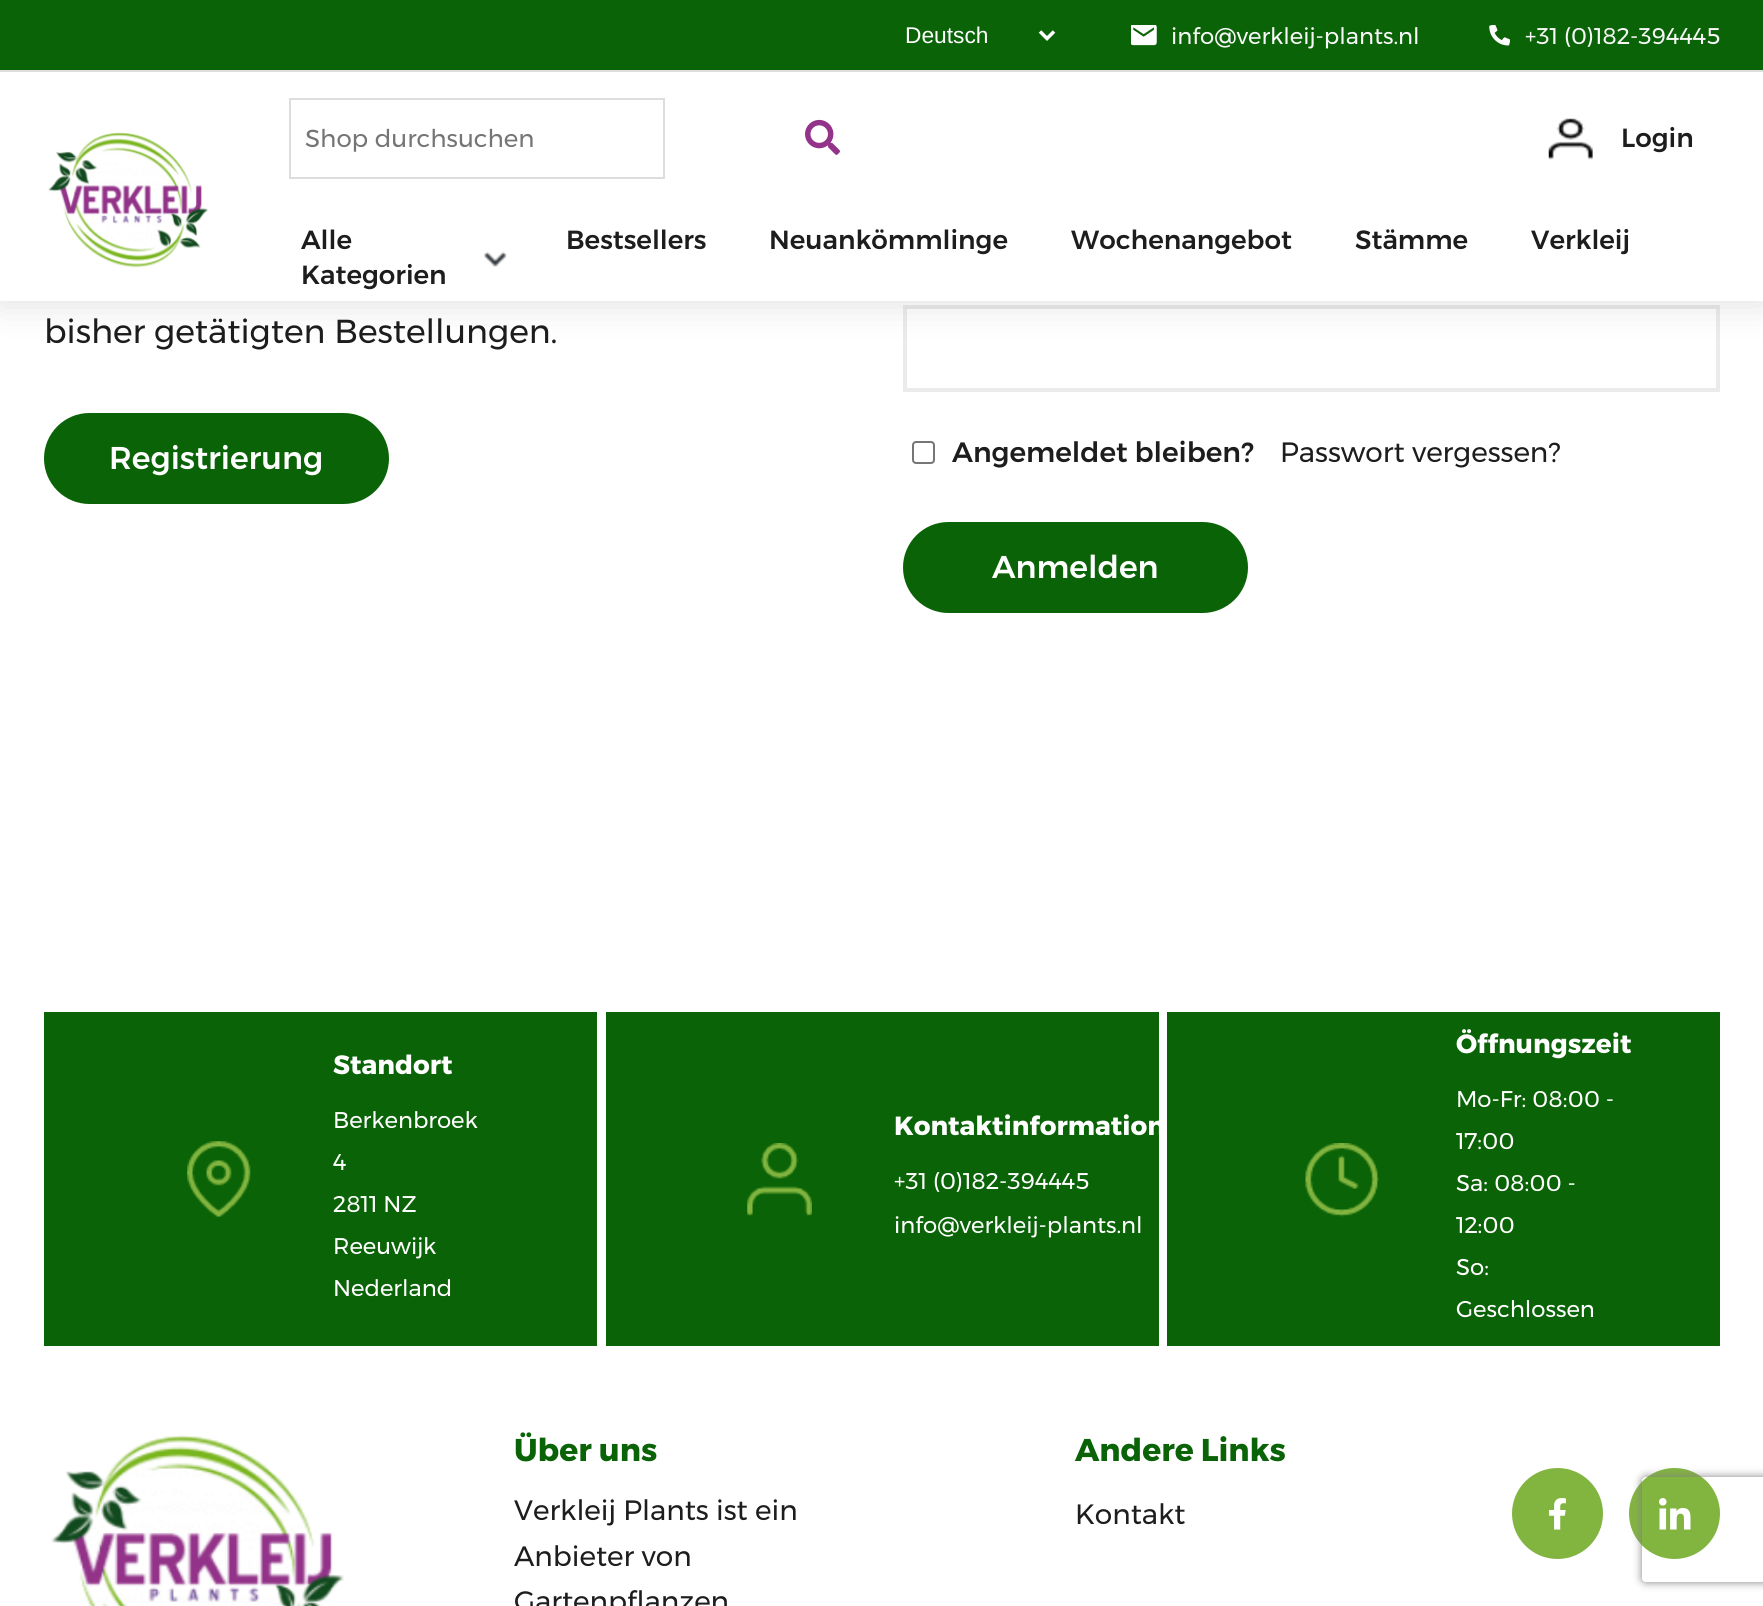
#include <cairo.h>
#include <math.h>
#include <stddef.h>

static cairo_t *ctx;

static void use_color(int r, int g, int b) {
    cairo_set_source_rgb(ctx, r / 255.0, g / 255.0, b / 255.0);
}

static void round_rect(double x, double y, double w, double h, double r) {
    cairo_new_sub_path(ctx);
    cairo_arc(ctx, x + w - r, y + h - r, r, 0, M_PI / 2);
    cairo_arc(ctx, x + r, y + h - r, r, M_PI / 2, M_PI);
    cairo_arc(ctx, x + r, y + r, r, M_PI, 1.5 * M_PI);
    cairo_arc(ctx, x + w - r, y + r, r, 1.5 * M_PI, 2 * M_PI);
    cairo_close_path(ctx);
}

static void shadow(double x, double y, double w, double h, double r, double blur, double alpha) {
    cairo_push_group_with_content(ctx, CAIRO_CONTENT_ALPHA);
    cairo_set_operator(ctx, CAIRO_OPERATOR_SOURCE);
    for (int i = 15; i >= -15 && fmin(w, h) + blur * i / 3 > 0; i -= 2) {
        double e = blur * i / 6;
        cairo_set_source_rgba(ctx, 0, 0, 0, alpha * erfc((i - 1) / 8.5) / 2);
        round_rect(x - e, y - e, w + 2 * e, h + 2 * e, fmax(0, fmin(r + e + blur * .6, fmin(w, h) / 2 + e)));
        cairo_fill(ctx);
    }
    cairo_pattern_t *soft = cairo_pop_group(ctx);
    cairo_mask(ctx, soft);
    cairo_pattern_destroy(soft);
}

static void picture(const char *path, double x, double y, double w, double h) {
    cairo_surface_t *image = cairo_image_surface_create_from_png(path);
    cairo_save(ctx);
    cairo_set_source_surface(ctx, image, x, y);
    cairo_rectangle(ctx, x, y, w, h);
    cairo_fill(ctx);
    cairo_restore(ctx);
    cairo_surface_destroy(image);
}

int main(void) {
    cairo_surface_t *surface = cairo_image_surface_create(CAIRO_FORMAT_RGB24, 1763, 1606);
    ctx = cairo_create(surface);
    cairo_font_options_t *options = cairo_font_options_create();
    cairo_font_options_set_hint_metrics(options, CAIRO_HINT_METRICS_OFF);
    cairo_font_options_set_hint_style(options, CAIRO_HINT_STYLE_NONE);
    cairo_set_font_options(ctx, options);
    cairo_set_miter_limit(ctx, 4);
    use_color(255, 255, 255);
    cairo_paint(ctx);
    cairo_rectangle(ctx, 905, 307, 813, 83);
    use_color(235, 235, 235);
    cairo_set_line_width(ctx, 4);
    cairo_stroke(ctx);
    use_color(0, 0, 0);
    shadow(0, 5, 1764, 301, 0, 17.5, 0.11);
    use_color(255, 255, 255);
    cairo_rectangle(ctx, 0, 72, 1763, 229);
    cairo_fill(ctx);
    use_color(10, 99, 6);
    cairo_rectangle(ctx, 0, 0, 1763, 70);
    cairo_fill(ctx);
    use_color(221, 221, 221);
    cairo_rectangle(ctx, 0, 70, 1763, 2);
    cairo_fill(ctx);
    cairo_new_path(ctx);
    cairo_move_to(ctx, 1040, 31.5);
    cairo_line_to(ctx, 1047, 38.5);
    cairo_line_to(ctx, 1054, 31.5);
    use_color(255, 255, 255);
    cairo_set_line_width(ctx, 3.5);
    cairo_stroke(ctx);
    cairo_select_font_face(ctx, "Liberation Sans", CAIRO_FONT_SLANT_NORMAL, CAIRO_FONT_WEIGHT_NORMAL);
    cairo_set_font_size(ctx, 22.75);
    cairo_move_to(ctx, 905, 43);
    cairo_show_text(ctx, "Deutsch");
    picture("img1.png", 1131, 25, 26, 21);
    cairo_select_font_face(ctx, "Montserrat", CAIRO_FONT_SLANT_NORMAL, CAIRO_FONT_WEIGHT_NORMAL);
    use_color(247, 247, 247);
    cairo_move_to(ctx, 1171, 44);
    cairo_show_text(ctx, "info@verkleij-plants.nl");
    picture("img2.png", 1489, 25, 21, 21);
    cairo_move_to(ctx, 1525, 44);
    cairo_show_text(ctx, "+31 (0)182-394445");
    picture("img3.png", 48, 132, 160, 136);
    cairo_rectangle(ctx, 290, 99, 374, 79);
    use_color(221, 221, 221);
    cairo_set_line_width(ctx, 2);
    cairo_stroke(ctx);
    cairo_set_font_size(ctx, 24.5);
    use_color(117, 117, 117);
    cairo_move_to(ctx, 305, 147);
    cairo_show_text(ctx, "Shop durchsuchen");
    picture("img4.png", 805, 119, 35, 36);
    picture("img5.png", 1548, 118, 45, 42);
    cairo_select_font_face(ctx, "Montserrat Medium", CAIRO_FONT_SLANT_NORMAL, CAIRO_FONT_WEIGHT_NORMAL);
    cairo_set_font_size(ctx, 26.25);
    use_color(29, 29, 29);
    cairo_move_to(ctx, 1621, 147);
    cairo_show_text(ctx, "Login");
    cairo_move_to(ctx, 301, 249);
    cairo_show_text(ctx, "Alle");
    cairo_move_to(ctx, 301, 284);
    cairo_show_text(ctx, "Kategorien");
    picture("img6.png", 484, 251, 23, 16);
    cairo_move_to(ctx, 566, 249);
    cairo_show_text(ctx, "Bestsellers");
    cairo_move_to(ctx, 769, 249);
    cairo_show_text(ctx, "Neuankömmlinge");
    cairo_move_to(ctx, 1071, 249);
    cairo_show_text(ctx, "Wochenangebot");
    cairo_move_to(ctx, 1355, 249);
    cairo_show_text(ctx, "Stämme");
    cairo_move_to(ctx, 1531, 249);
    cairo_show_text(ctx, "Verkleij");
    cairo_select_font_face(ctx, "Montserrat", CAIRO_FONT_SLANT_NORMAL, CAIRO_FONT_WEIGHT_NORMAL);
    cairo_set_font_size(ctx, 33.25);
    cairo_move_to(ctx, 44, 343);
    cairo_show_text(ctx, "bisher getätigten Bestellungen.");
    use_color(10, 99, 6);
    round_rect(44, 413, 345, 91, 45.5);
    cairo_fill(ctx);
    cairo_select_font_face(ctx, "Montserrat Medium", CAIRO_FONT_SLANT_NORMAL, CAIRO_FONT_WEIGHT_NORMAL);
    cairo_set_font_size(ctx, 31.5);
    use_color(255, 255, 255);
    cairo_move_to(ctx, 109, 469);
    cairo_show_text(ctx, "Registrierung");
    round_rect(913, 442, 21, 21, 3);
    use_color(118, 118, 118);
    cairo_stroke(ctx);
    cairo_set_font_size(ctx, 28);
    use_color(29, 29, 29);
    cairo_move_to(ctx, 952, 462);
    cairo_show_text(ctx, "Angemeldet bleiben?");
    cairo_select_font_face(ctx, "Montserrat", CAIRO_FONT_SLANT_NORMAL, CAIRO_FONT_WEIGHT_NORMAL);
    cairo_move_to(ctx, 1280, 462);
    cairo_show_text(ctx, "Passwort vergessen?");
    use_color(10, 99, 6);
    round_rect(903, 522, 345, 91, 45.5);
    cairo_fill(ctx);
    cairo_select_font_face(ctx, "Montserrat Medium", CAIRO_FONT_SLANT_NORMAL, CAIRO_FONT_WEIGHT_NORMAL);
    cairo_set_font_size(ctx, 31.5);
    use_color(255, 255, 255);
    cairo_move_to(ctx, 992, 578);
    cairo_show_text(ctx, "Anmelden");
    use_color(10, 99, 6);
    cairo_rectangle(ctx, 44, 1012, 553, 334);
    cairo_fill(ctx);
    picture("img7.png", 187, 1141, 64, 77);
    cairo_select_font_face(ctx, "Montserrat", CAIRO_FONT_SLANT_NORMAL, CAIRO_FONT_WEIGHT_BOLD);
    cairo_set_font_size(ctx, 26.25);
    use_color(255, 255, 255);
    cairo_move_to(ctx, 333, 1074);
    cairo_show_text(ctx, "Standort");
    cairo_select_font_face(ctx, "Montserrat", CAIRO_FONT_SLANT_NORMAL, CAIRO_FONT_WEIGHT_NORMAL);
    cairo_set_font_size(ctx, 22.75);
    cairo_move_to(ctx, 333, 1128);
    cairo_show_text(ctx, "Berkenbroek");
    cairo_move_to(ctx, 333, 1170);
    cairo_show_text(ctx, "4");
    cairo_move_to(ctx, 333, 1212);
    cairo_show_text(ctx, "2811 NZ");
    cairo_move_to(ctx, 333, 1254);
    cairo_show_text(ctx, "Reeuwijk");
    cairo_move_to(ctx, 333, 1296);
    cairo_show_text(ctx, "Nederland");
    use_color(10, 99, 6);
    cairo_rectangle(ctx, 606, 1012, 553, 334);
    cairo_fill(ctx);
    picture("img8.png", 747, 1143, 65, 73);
    cairo_select_font_face(ctx, "Montserrat", CAIRO_FONT_SLANT_NORMAL, CAIRO_FONT_WEIGHT_BOLD);
    cairo_set_font_size(ctx, 26.25);
    use_color(255, 255, 255);
    cairo_move_to(ctx, 894, 1135);
    cairo_show_text(ctx, "Kontaktinformation");
    cairo_select_font_face(ctx, "Montserrat", CAIRO_FONT_SLANT_NORMAL, CAIRO_FONT_WEIGHT_NORMAL);
    cairo_set_font_size(ctx, 22.75);
    cairo_move_to(ctx, 894, 1189);
    cairo_show_text(ctx, "+31 (0)182-394445");
    cairo_move_to(ctx, 894, 1233);
    cairo_show_text(ctx, "info@verkleij-plants.nl");
    use_color(10, 99, 6);
    cairo_rectangle(ctx, 1167, 1012, 553, 334);
    cairo_fill(ctx);
    picture("img9.png", 1305, 1143, 74, 74);
    cairo_select_font_face(ctx, "Montserrat", CAIRO_FONT_SLANT_NORMAL, CAIRO_FONT_WEIGHT_BOLD);
    cairo_set_font_size(ctx, 26.25);
    use_color(255, 255, 255);
    cairo_move_to(ctx, 1456, 1053);
    cairo_show_text(ctx, "Öffnungszeit");
    cairo_select_font_face(ctx, "Montserrat", CAIRO_FONT_SLANT_NORMAL, CAIRO_FONT_WEIGHT_NORMAL);
    cairo_set_font_size(ctx, 22.75);
    cairo_move_to(ctx, 1456, 1107);
    cairo_show_text(ctx, "Mo-Fr: 08:00 -");
    cairo_move_to(ctx, 1456, 1149);
    cairo_show_text(ctx, "17:00");
    cairo_move_to(ctx, 1456, 1191);
    cairo_show_text(ctx, "Sa: 08:00 -");
    cairo_move_to(ctx, 1456, 1233);
    cairo_show_text(ctx, "12:00");
    cairo_move_to(ctx, 1456, 1275);
    cairo_show_text(ctx, "So:");
    cairo_move_to(ctx, 1456, 1317);
    cairo_show_text(ctx, "Geschlossen");
    picture("img10.png", 51, 1435, 293, 171);
    cairo_select_font_face(ctx, "Montserrat", CAIRO_FONT_SLANT_NORMAL, CAIRO_FONT_WEIGHT_BOLD);
    cairo_set_font_size(ctx, 31.5);
    use_color(10, 99, 6);
    cairo_move_to(ctx, 514, 1461);
    cairo_show_text(ctx, "Über uns");
    cairo_select_font_face(ctx, "Montserrat", CAIRO_FONT_SLANT_NORMAL, CAIRO_FONT_WEIGHT_NORMAL);
    cairo_set_font_size(ctx, 28);
    use_color(29, 29, 29);
    cairo_move_to(ctx, 514, 1520);
    cairo_show_text(ctx, "Verkleij Plants ist ein");
    cairo_move_to(ctx, 514, 1566);
    cairo_show_text(ctx, "Anbieter von");
    cairo_move_to(ctx, 514, 1611);
    cairo_show_text(ctx, "Gartenpflanzen");
    cairo_select_font_face(ctx, "Montserrat", CAIRO_FONT_SLANT_NORMAL, CAIRO_FONT_WEIGHT_BOLD);
    cairo_set_font_size(ctx, 31.5);
    use_color(10, 99, 6);
    cairo_move_to(ctx, 1075, 1461);
    cairo_show_text(ctx, "Andere Links");
    cairo_select_font_face(ctx, "Montserrat", CAIRO_FONT_SLANT_NORMAL, CAIRO_FONT_WEIGHT_NORMAL);
    cairo_set_font_size(ctx, 28);
    use_color(29, 29, 29);
    cairo_move_to(ctx, 1075, 1524);
    cairo_show_text(ctx, "Kontakt");
    use_color(130, 180, 64);
    cairo_new_path(ctx);
    cairo_arc(ctx, 1557.5, 1513.5, 45.5, 0, 2 * M_PI);
    cairo_fill(ctx);
    picture("img11.png", 1549, 1498, 17, 32);
    cairo_arc(ctx, 1674.5, 1513.5, 45.5, 0, 2 * M_PI);
    cairo_fill(ctx);
    picture("img12.png", 1659, 1498, 32, 32);
    cairo_save(ctx);
    cairo_set_fill_rule(ctx, CAIRO_FILL_RULE_EVEN_ODD);
    cairo_new_path(ctx);
    cairo_move_to(ctx, 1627, 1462);
    cairo_line_to(ctx, 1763, 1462);
    cairo_line_to(ctx, 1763, 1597);
    cairo_line_to(ctx, 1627, 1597);
    cairo_close_path(ctx);
    cairo_move_to(ctx, 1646, 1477);
    cairo_line_to(ctx, 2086, 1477);
    cairo_curve_to(ctx, 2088, 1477, 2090, 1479, 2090, 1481);
    cairo_line_to(ctx, 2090, 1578);
    cairo_curve_to(ctx, 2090, 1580, 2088, 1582, 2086, 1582);
    cairo_line_to(ctx, 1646, 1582);
    cairo_curve_to(ctx, 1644, 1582, 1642, 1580, 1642, 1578);
    cairo_line_to(ctx, 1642, 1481);
    cairo_curve_to(ctx, 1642, 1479, 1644, 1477, 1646, 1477);
    cairo_close_path(ctx);
    cairo_clip(ctx);
    use_color(128, 128, 128);
    shadow(1642, 1477, 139, 105, 4, 4.5, 1);
    cairo_restore(ctx);
    cairo_surface_write_to_png(surface, "result.png");
    cairo_font_options_destroy(options);
    cairo_destroy(ctx);
    cairo_surface_destroy(surface);
    return 0;
}
